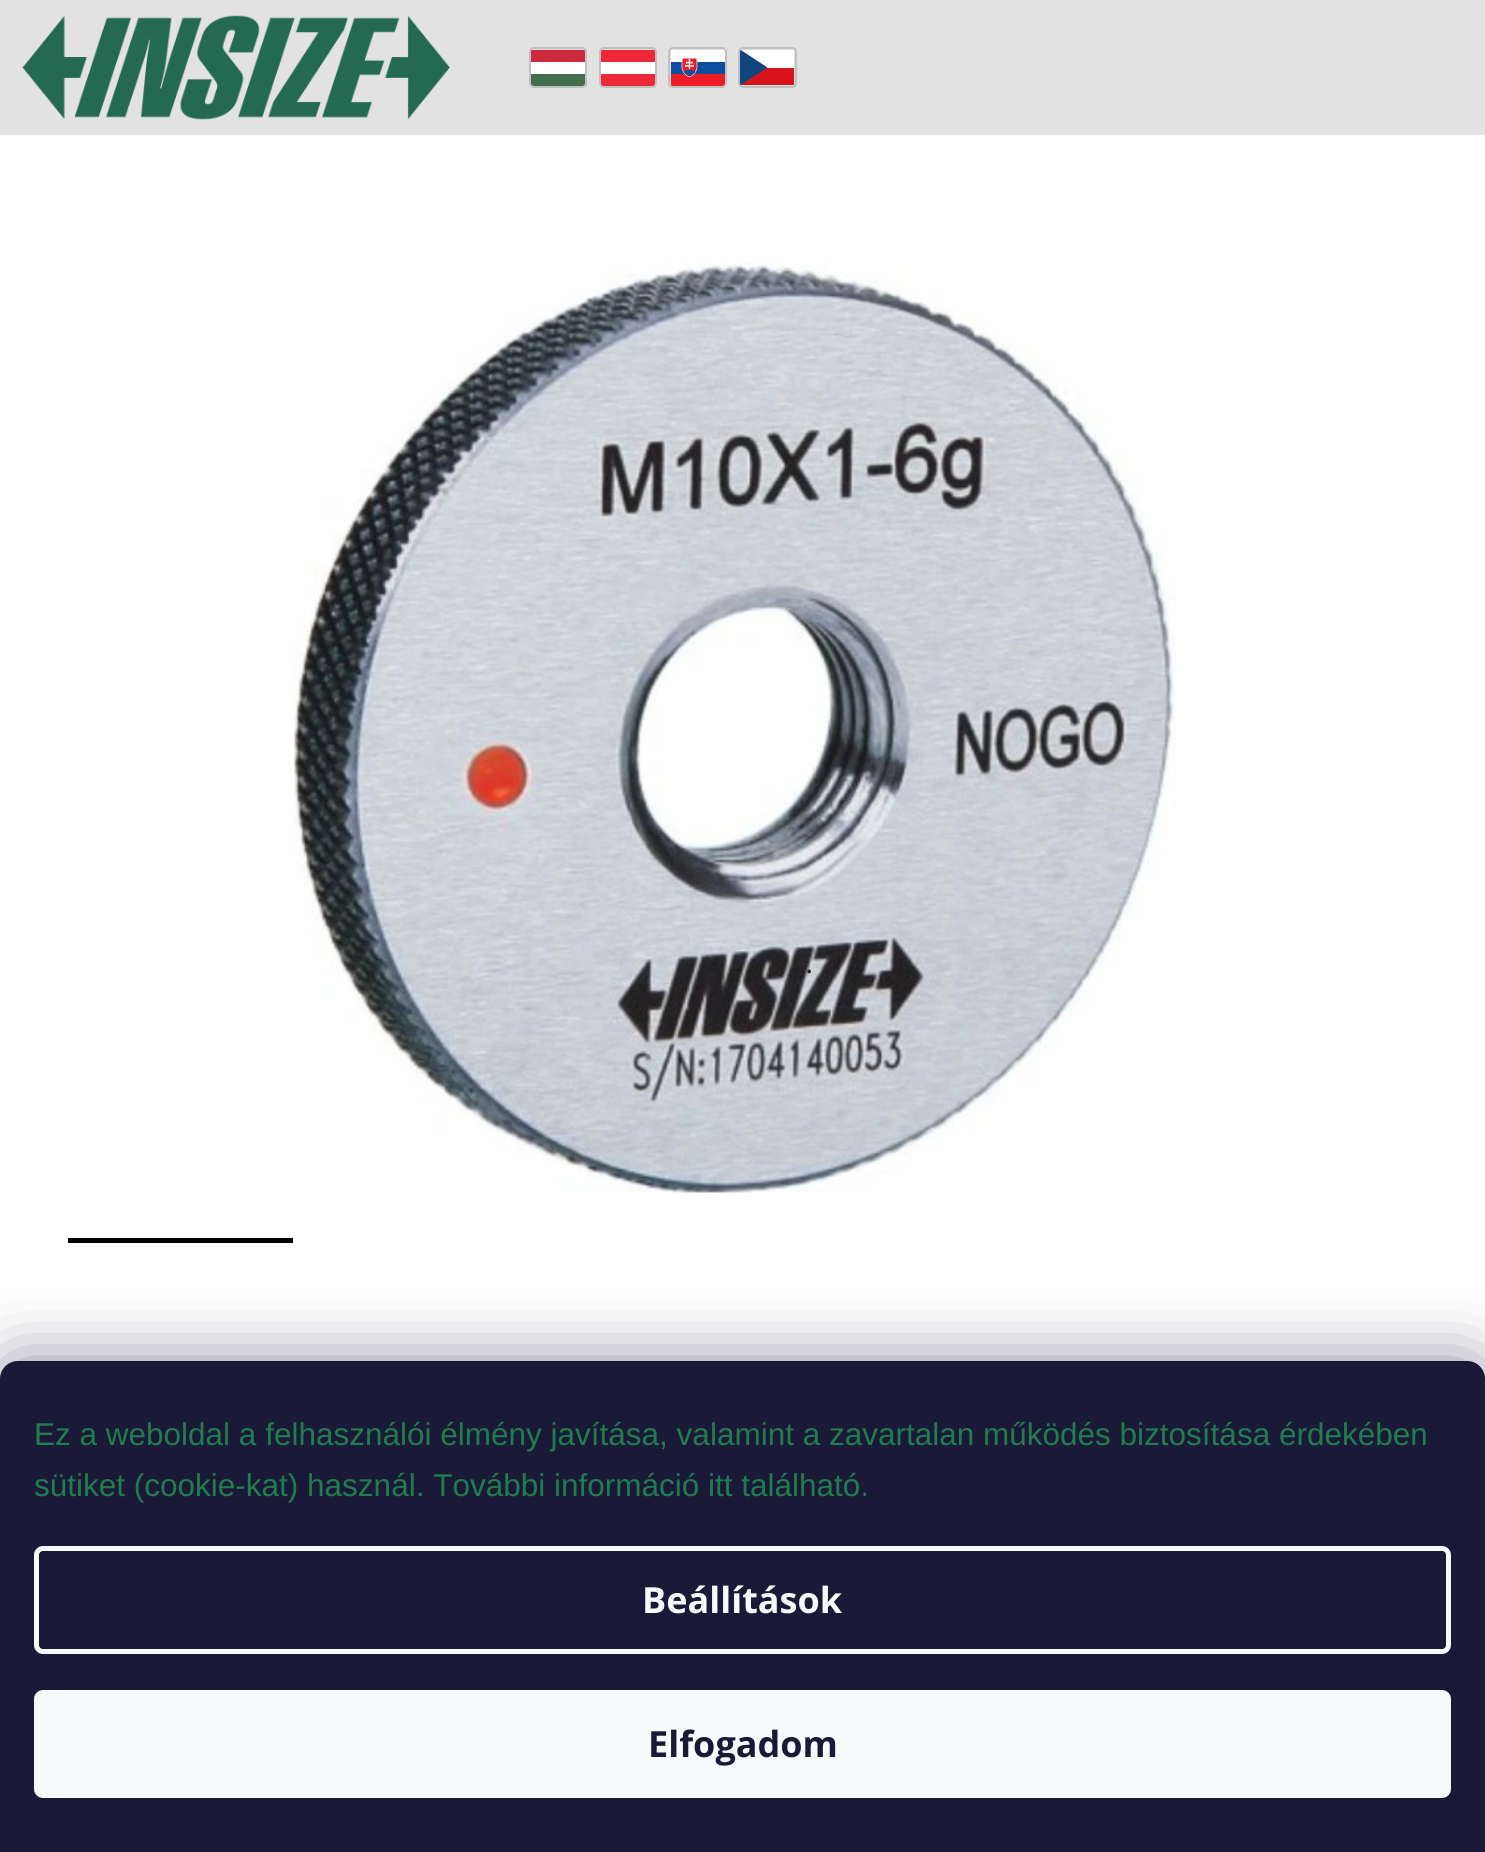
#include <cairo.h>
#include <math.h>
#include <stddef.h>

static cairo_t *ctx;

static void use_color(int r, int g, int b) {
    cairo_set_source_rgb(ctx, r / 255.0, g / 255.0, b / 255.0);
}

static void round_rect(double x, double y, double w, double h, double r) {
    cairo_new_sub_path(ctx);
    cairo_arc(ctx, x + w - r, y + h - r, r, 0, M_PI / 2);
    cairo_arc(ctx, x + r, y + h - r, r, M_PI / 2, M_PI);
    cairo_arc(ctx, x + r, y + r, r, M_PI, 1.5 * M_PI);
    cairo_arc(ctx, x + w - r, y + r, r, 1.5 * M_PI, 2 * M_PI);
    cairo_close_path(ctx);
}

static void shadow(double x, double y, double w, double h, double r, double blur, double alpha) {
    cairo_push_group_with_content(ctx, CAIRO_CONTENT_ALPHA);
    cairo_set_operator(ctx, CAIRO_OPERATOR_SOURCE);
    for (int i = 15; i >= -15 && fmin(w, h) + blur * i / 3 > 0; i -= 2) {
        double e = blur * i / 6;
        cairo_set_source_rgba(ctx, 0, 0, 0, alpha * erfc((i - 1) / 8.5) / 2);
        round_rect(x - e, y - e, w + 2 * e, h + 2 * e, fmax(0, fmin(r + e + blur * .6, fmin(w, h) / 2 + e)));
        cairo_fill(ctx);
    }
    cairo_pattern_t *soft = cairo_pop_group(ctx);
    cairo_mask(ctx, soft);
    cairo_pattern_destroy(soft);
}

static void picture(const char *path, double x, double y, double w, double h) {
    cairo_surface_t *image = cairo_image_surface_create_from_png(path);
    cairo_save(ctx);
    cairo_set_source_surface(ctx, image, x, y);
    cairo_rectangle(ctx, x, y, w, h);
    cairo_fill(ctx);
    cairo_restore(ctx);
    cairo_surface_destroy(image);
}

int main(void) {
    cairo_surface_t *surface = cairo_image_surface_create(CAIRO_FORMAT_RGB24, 1485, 1852);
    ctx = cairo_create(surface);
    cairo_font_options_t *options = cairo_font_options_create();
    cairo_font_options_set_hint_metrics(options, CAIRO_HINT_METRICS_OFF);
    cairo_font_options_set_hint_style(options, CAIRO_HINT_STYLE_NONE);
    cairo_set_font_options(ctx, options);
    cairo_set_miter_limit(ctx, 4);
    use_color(226, 226, 226);
    cairo_paint(ctx);
    picture("img1.png", 22, 15, 428, 105);
    cairo_save(ctx);
    round_rect(529, 47, 58, 41, 5);
    cairo_clip(ctx);
    use_color(67, 111, 77);
    cairo_rectangle(ctx, 531, 50, 56, 36);
    cairo_fill(ctx);
    cairo_restore(ctx);
    use_color(255, 255, 255);
    cairo_rectangle(ctx, 531, 50, 56, 24);
    cairo_fill(ctx);
    use_color(205, 42, 62);
    cairo_rectangle(ctx, 531, 50, 56, 12);
    cairo_fill(ctx);
    round_rect(530, 48, 56, 39, 4);
    use_color(192, 192, 192);
    cairo_stroke(ctx);
    use_color(237, 41, 57);
    cairo_rectangle(ctx, 601, 50, 54, 36);
    cairo_fill(ctx);
    use_color(255, 255, 255);
    cairo_rectangle(ctx, 601, 62, 54, 12);
    cairo_fill(ctx);
    round_rect(600, 48, 56, 39, 4);
    use_color(192, 192, 192);
    cairo_stroke(ctx);
    picture("img2.png", 671, 50, 54, 36);
    round_rect(669, 48, 57, 39, 4);
    cairo_stroke(ctx);
    use_color(215, 20, 25);
    cairo_rectangle(ctx, 740, 68, 54, 17);
    cairo_fill(ctx);
    use_color(255, 255, 255);
    cairo_rectangle(ctx, 740, 50, 54, 18);
    cairo_fill(ctx);
    use_color(17, 69, 126);
    cairo_new_path(ctx);
    cairo_move_to(ctx, 767.5, 67.5);
    cairo_line_to(ctx, 740, 85.5);
    cairo_line_to(ctx, 740, 49.5);
    cairo_close_path(ctx);
    cairo_fill(ctx);
    round_rect(739, 48, 57, 39, 4);
    use_color(192, 192, 192);
    cairo_stroke(ctx);
    use_color(255, 255, 255);
    cairo_rectangle(ctx, 0, 135, 1485, 1244);
    cairo_fill(ctx);
    picture("img3.png", 292, 261, 884, 932);
    cairo_select_font_face(ctx, "Open Sans", CAIRO_FONT_SLANT_NORMAL, CAIRO_FONT_WEIGHT_NORMAL);
    cairo_set_font_size(ctx, 31.5);
    use_color(41, 41, 43);
    cairo_move_to(ctx, 805, 973);
    cairo_show_text(ctx, ".");
    use_color(0, 0, 0);
    cairo_rectangle(ctx, 68, 1238, 225, 5);
    cairo_fill(ctx);
    use_color(27, 25, 57);
    shadow(0, 1361, 1485, 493, 18, 34, 0.5);
    use_color(26, 25, 55);
    cairo_new_path(ctx);
    cairo_move_to(ctx, 18, 1361);
    cairo_line_to(ctx, 1467, 1361);
    cairo_curve_to(ctx, 1477, 1361, 1485, 1369, 1485, 1379);
    cairo_line_to(ctx, 1485, 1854);
    cairo_line_to(ctx, 0, 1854);
    cairo_line_to(ctx, 0, 1379);
    cairo_curve_to(ctx, 0, 1369, 8, 1361, 18, 1361);
    cairo_close_path(ctx);
    cairo_fill(ctx);
    cairo_select_font_face(ctx, "Liberation Sans", CAIRO_FONT_SLANT_NORMAL, CAIRO_FONT_WEIGHT_NORMAL);
    use_color(31, 125, 78);
    cairo_move_to(ctx, 34, 1445);
    cairo_show_text(ctx, "Ez a weboldal a felhasználói élmény javítása, valamint a zavartalan működés biztosítása érdekében");
    cairo_move_to(ctx, 34, 1496);
    cairo_show_text(ctx, "sütiket (cookie-kat) használ. További információ itt található.");
    round_rect(36.5, 1548.5, 1412, 103, 6.5);
    use_color(248, 250, 251);
    cairo_set_line_width(ctx, 5);
    cairo_stroke(ctx);
    cairo_select_font_face(ctx, "Open Sans", CAIRO_FONT_SLANT_NORMAL, CAIRO_FONT_WEIGHT_BOLD);
    cairo_set_font_size(ctx, 36);
    cairo_move_to(ctx, 642, 1613);
    cairo_show_text(ctx, "Beállítások");
    round_rect(34, 1690, 1417, 108, 9);
    cairo_fill(ctx);
    use_color(26, 25, 55);
    cairo_move_to(ctx, 648, 1757);
    cairo_show_text(ctx, "Elfogadom");
    cairo_surface_write_to_png(surface, "result.png");
    cairo_font_options_destroy(options);
    cairo_destroy(ctx);
    cairo_surface_destroy(surface);
    return 0;
}
